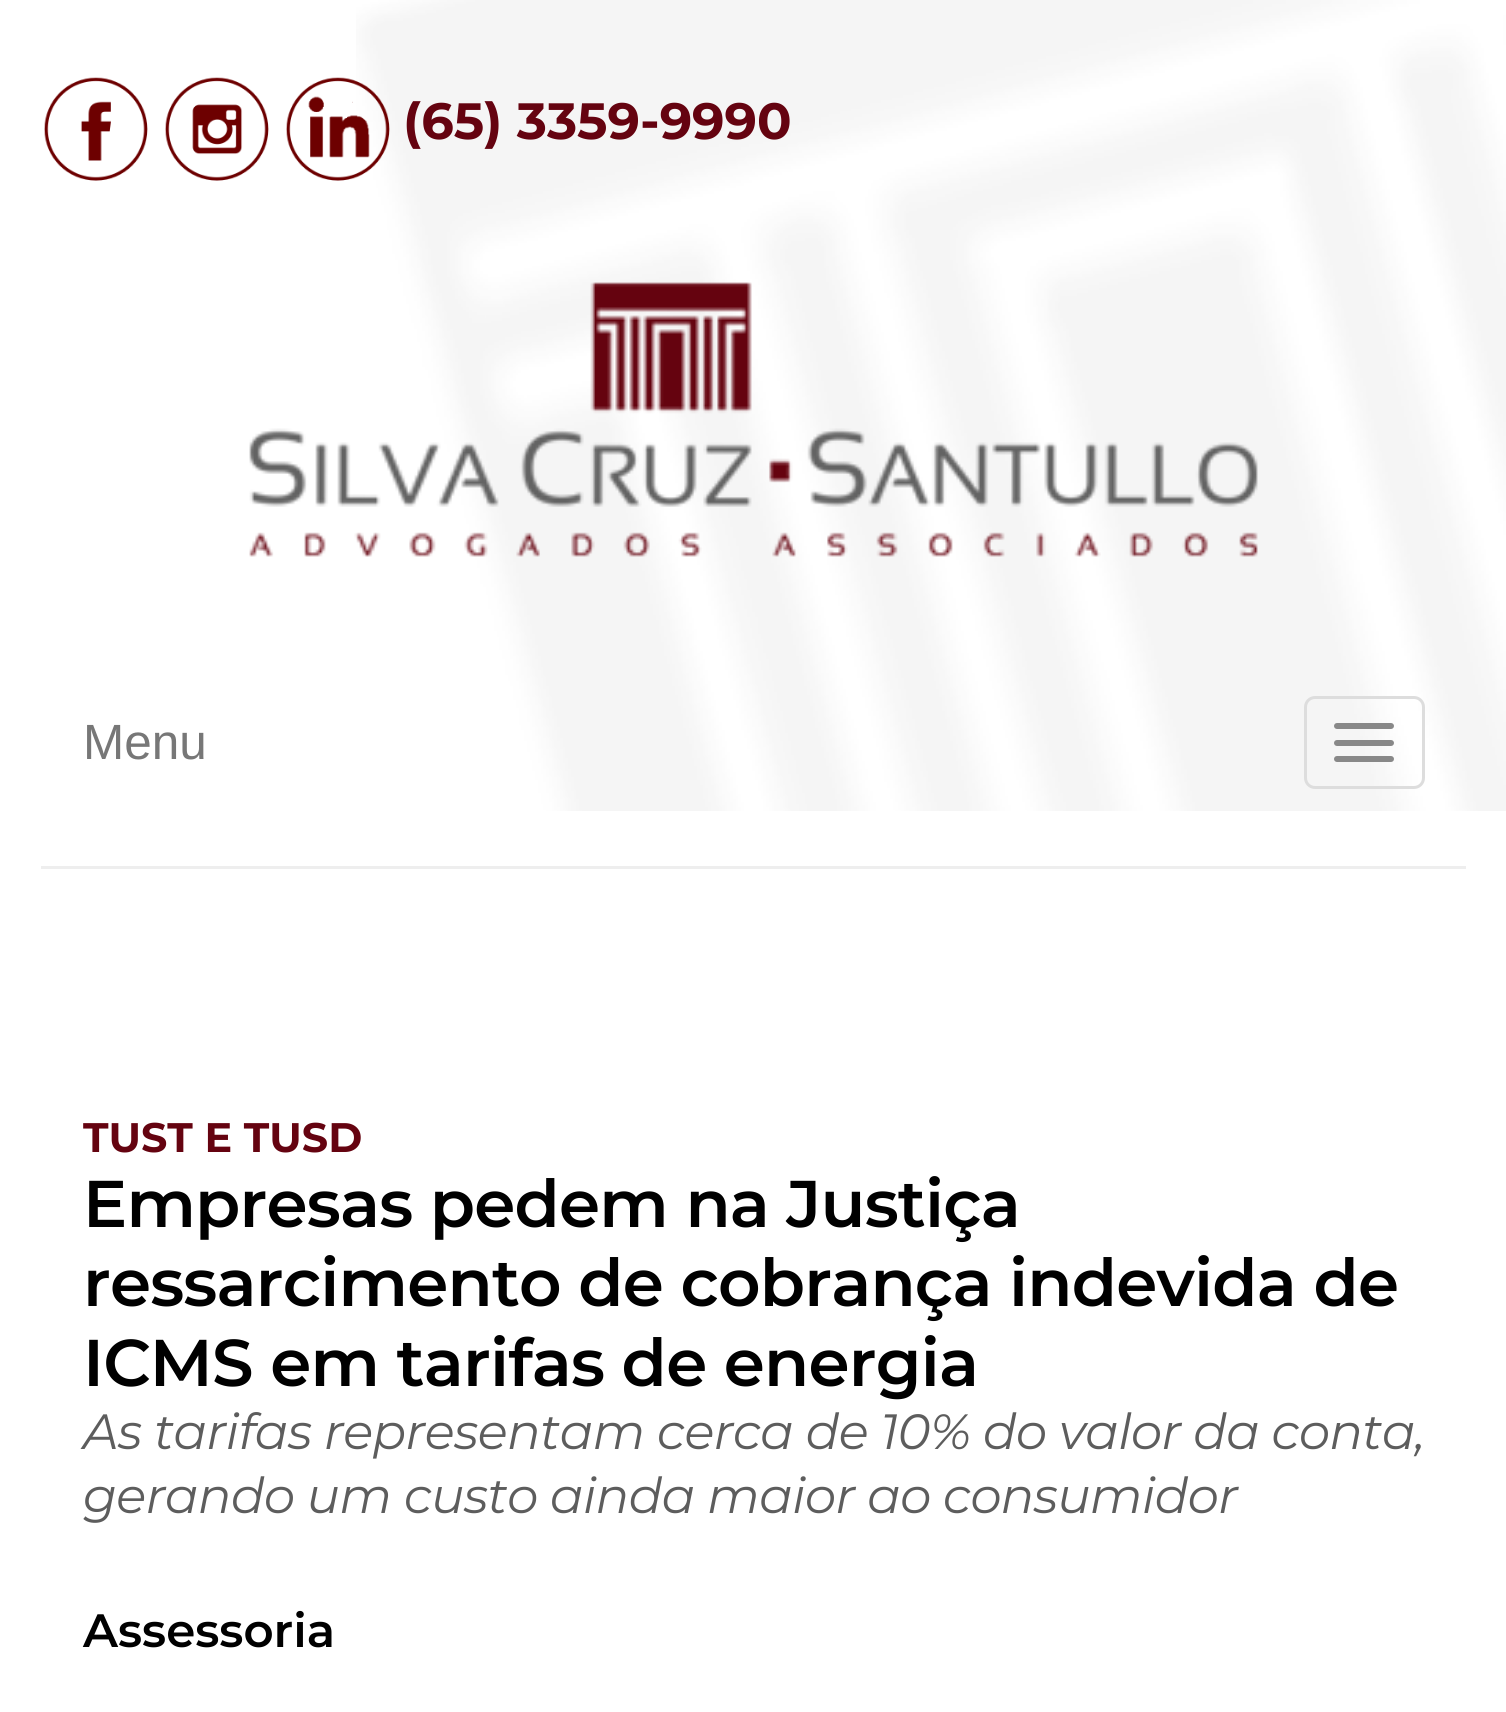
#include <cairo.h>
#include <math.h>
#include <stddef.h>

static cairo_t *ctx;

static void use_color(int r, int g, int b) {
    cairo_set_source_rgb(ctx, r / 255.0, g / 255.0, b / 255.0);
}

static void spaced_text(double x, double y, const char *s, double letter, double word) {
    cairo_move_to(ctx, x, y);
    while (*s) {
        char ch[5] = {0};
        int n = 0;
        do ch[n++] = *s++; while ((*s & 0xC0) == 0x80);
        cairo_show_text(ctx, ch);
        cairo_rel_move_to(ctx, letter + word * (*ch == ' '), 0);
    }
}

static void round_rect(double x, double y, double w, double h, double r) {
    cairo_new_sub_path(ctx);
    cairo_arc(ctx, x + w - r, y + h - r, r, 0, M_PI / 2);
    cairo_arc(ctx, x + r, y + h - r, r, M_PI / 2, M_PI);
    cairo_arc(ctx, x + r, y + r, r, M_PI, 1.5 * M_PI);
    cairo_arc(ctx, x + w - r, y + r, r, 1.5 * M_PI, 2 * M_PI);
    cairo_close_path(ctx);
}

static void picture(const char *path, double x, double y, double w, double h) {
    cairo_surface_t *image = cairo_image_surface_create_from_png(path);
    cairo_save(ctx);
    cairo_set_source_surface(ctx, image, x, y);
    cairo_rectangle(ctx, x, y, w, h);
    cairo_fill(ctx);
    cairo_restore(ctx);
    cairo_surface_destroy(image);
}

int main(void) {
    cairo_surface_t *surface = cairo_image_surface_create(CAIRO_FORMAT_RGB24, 1506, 1712);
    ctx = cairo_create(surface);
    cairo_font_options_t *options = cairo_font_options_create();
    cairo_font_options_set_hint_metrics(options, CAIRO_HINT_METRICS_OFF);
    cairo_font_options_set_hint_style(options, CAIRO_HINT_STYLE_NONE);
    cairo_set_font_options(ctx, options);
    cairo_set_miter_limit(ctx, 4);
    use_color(255, 255, 255);
    cairo_paint(ctx);
    picture("img1.png", 356, 0, 1150, 811);
    picture("img2.png", 44, 77, 104, 104);
    picture("img3.png", 165, 77, 104, 104);
    picture("img4.png", 286, 77, 104, 104);
    cairo_select_font_face(ctx, "Montserrat", CAIRO_FONT_SLANT_NORMAL, CAIRO_FONT_WEIGHT_BOLD);
    cairo_set_font_size(ctx, 51);
    use_color(101, 3, 16);
    cairo_move_to(ctx, 403, 139);
    cairo_show_text(ctx, "(65) 3359-9990");
    picture("img5.png", 249, 282, 1009, 275);
    cairo_select_font_face(ctx, "Liberation Sans", CAIRO_FONT_SLANT_NORMAL, CAIRO_FONT_WEIGHT_NORMAL);
    cairo_set_font_size(ctx, 49.5);
    use_color(119, 119, 119);
    cairo_move_to(ctx, 83, 759);
    cairo_show_text(ctx, "Menu");
    round_rect(1305.5, 697.5, 118, 90, 9.5);
    use_color(221, 221, 221);
    cairo_set_line_width(ctx, 3);
    cairo_stroke(ctx);
    use_color(136, 136, 136);
    round_rect(1334, 723, 60, 6, 3);
    cairo_fill(ctx);
    round_rect(1334, 740, 60, 6, 3);
    cairo_fill(ctx);
    round_rect(1334, 756, 60, 6, 3);
    cairo_fill(ctx);
    use_color(238, 238, 238);
    cairo_rectangle(ctx, 41, 866, 1425, 3);
    cairo_fill(ctx);
    cairo_select_font_face(ctx, "Montserrat", CAIRO_FONT_SLANT_NORMAL, CAIRO_FONT_WEIGHT_BOLD);
    cairo_set_font_size(ctx, 41.25);
    use_color(101, 3, 16);
    cairo_move_to(ctx, 83, 1152);
    cairo_show_text(ctx, "TUST E TUSD");
    cairo_select_font_face(ctx, "Montserrat SemiBold", CAIRO_FONT_SLANT_NORMAL, CAIRO_FONT_WEIGHT_NORMAL);
    cairo_set_font_size(ctx, 66);
    use_color(0, 0, 0);
    spaced_text(83, 1227, "Empresas pedem na Justiça", -0.8, 0);
    spaced_text(83, 1306, "ressarcimento de cobrança indevida de", -0.8, 0);
    spaced_text(83, 1386, "ICMS em tarifas de energia", -0.8, 0);
    cairo_select_font_face(ctx, "Montserrat", CAIRO_FONT_SLANT_ITALIC, CAIRO_FONT_WEIGHT_NORMAL);
    cairo_set_font_size(ctx, 49.5);
    use_color(93, 93, 93);
    spaced_text(83, 1449, "As tarifas representam cerca de 10% do valor da conta,", -0.55, 0);
    spaced_text(83, 1513, "gerando um custo ainda maior ao consumidor", -0.55, 0);
    cairo_select_font_face(ctx, "Montserrat SemiBold", CAIRO_FONT_SLANT_NORMAL, CAIRO_FONT_WEIGHT_NORMAL);
    cairo_set_font_size(ctx, 46.75);
    use_color(0, 0, 0);
    cairo_move_to(ctx, 83, 1647);
    cairo_show_text(ctx, "Assessoria");
    cairo_surface_write_to_png(surface, "result.png");
    cairo_font_options_destroy(options);
    cairo_destroy(ctx);
    cairo_surface_destroy(surface);
    return 0;
}
